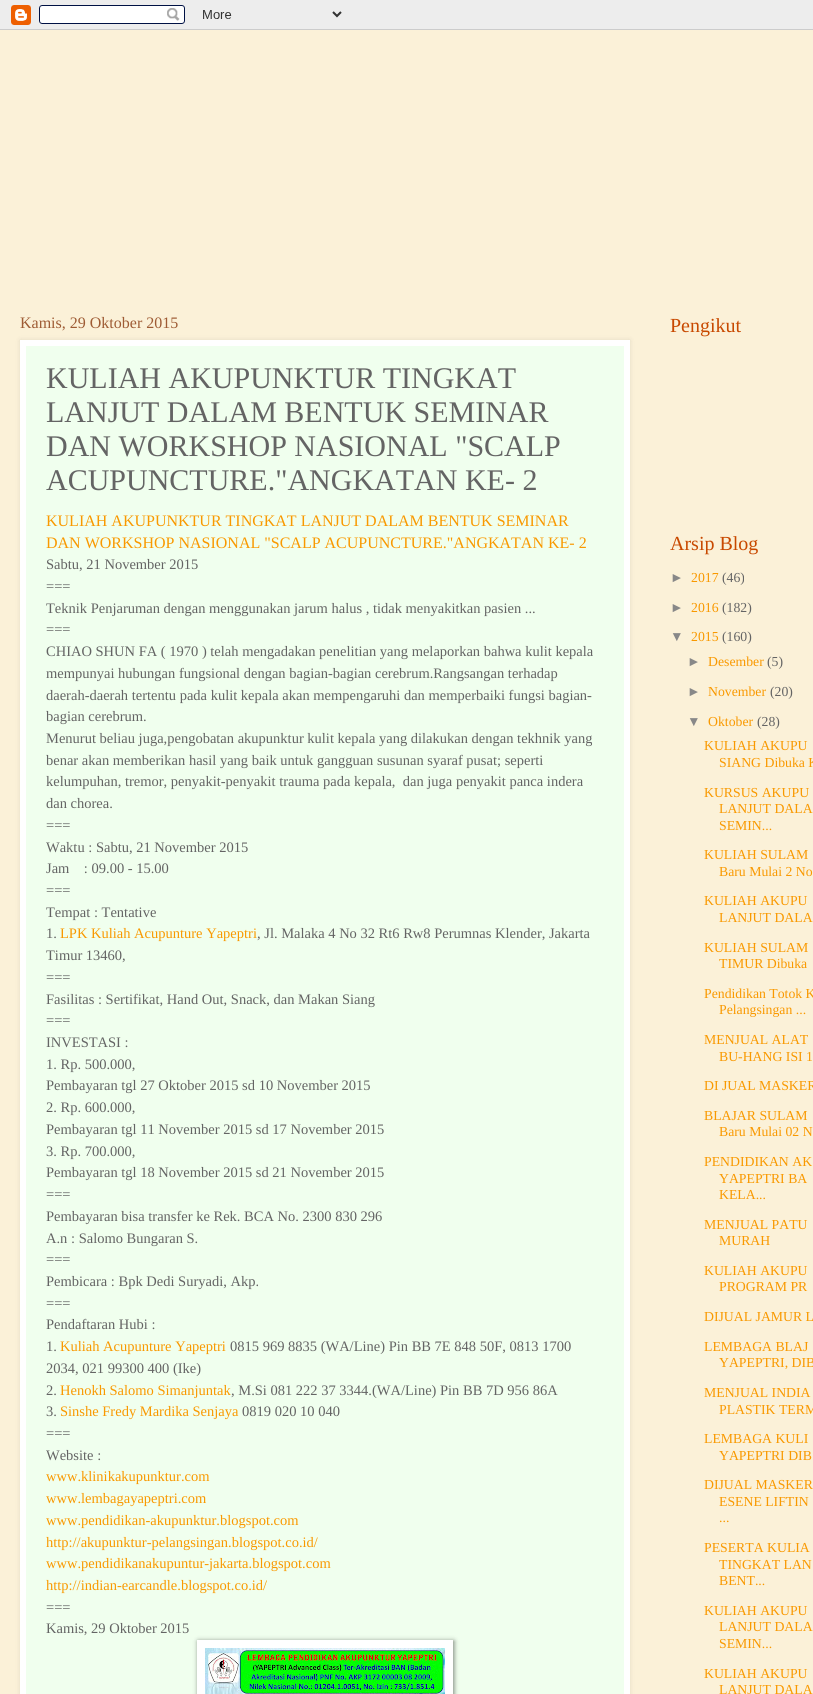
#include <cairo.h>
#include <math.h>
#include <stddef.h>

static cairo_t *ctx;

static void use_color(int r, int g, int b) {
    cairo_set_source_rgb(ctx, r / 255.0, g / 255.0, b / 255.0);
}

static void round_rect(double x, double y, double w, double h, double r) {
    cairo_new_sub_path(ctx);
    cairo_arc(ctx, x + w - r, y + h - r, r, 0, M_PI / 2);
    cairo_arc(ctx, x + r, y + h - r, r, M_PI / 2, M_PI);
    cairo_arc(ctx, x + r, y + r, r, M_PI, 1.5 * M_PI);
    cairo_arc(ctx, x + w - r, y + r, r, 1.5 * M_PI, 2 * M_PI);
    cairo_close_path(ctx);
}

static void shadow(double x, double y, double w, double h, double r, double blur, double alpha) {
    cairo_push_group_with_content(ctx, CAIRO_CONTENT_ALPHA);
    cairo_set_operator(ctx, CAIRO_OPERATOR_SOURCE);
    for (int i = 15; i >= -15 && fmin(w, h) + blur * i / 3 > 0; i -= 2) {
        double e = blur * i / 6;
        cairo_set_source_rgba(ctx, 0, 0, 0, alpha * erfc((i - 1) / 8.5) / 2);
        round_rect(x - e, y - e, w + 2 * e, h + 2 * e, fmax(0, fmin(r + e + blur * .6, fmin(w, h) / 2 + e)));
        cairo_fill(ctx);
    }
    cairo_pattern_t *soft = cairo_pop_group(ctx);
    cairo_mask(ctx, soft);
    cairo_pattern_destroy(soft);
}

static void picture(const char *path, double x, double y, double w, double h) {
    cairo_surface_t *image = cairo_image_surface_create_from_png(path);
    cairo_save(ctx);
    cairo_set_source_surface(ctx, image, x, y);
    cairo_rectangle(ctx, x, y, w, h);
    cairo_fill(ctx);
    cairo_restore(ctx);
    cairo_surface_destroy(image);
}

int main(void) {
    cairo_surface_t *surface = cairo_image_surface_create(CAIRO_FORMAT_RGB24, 813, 1694);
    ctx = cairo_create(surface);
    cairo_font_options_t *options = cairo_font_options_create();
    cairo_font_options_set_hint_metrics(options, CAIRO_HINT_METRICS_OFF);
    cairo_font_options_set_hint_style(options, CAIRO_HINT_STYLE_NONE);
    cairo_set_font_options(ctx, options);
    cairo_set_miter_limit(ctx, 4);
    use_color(251, 241, 216);
    cairo_paint(ctx);
    picture("img1.png", 0, 0, 813, 30);
    cairo_select_font_face(ctx, "Liberation Serif", CAIRO_FONT_SLANT_NORMAL, CAIRO_FONT_WEIGHT_NORMAL);
    cairo_set_font_size(ctx, 16);
    use_color(158, 91, 52);
    cairo_move_to(ctx, 20, 328);
    cairo_show_text(ctx, "Kamis, 29 Oktober 2015");
    use_color(0, 0, 0);
    shadow(20, 340, 610, 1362, 0, 2.5, 0.1);
    use_color(240, 255, 238);
    cairo_rectangle(ctx, 23, 343, 604, 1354);
    cairo_fill_preserve(ctx);
    use_color(255, 255, 255);
    cairo_set_line_width(ctx, 6);
    cairo_stroke(ctx);
    cairo_set_font_size(ctx, 30);
    use_color(100, 100, 100);
    cairo_move_to(ctx, 46, 388);
    cairo_show_text(ctx, "KULIAH AKUPUNKTUR TINGKAT");
    cairo_move_to(ctx, 46, 422);
    cairo_show_text(ctx, "LANJUT DALAM BENTUK SEMINAR");
    cairo_move_to(ctx, 46, 456);
    cairo_show_text(ctx, "DAN WORKSHOP NASIONAL \"SCALP");
    cairo_move_to(ctx, 46, 490);
    cairo_show_text(ctx, "ACUPUNCTURE.\"ANGKATAN KE- 2");
    cairo_set_font_size(ctx, 16);
    use_color(249, 153, 0);
    cairo_move_to(ctx, 46, 526);
    cairo_show_text(ctx, "KULIAH AKUPUNKTUR TINGKAT LANJUT DALAM BENTUK SEMINAR");
    cairo_move_to(ctx, 46, 548);
    cairo_show_text(ctx, "DAN WORKSHOP NASIONAL \"SCALP ACUPUNCTURE.\"ANGKATAN KE- 2");
    cairo_set_font_size(ctx, 14.5);
    use_color(100, 100, 100);
    cairo_move_to(ctx, 46, 569);
    cairo_show_text(ctx, "Sabtu, 21 November 2015");
    cairo_move_to(ctx, 46, 591);
    cairo_show_text(ctx, "===");
    cairo_move_to(ctx, 46, 613);
    cairo_show_text(ctx, "Teknik Penjaruman dengan menggunakan jarum halus , tidak menyakitkan pasien ...");
    cairo_move_to(ctx, 46, 634);
    cairo_show_text(ctx, "===");
    cairo_move_to(ctx, 46, 656);
    cairo_show_text(ctx, "CHIAO SHUN FA ( 1970 ) telah mengadakan penelitian yang melaporkan bahwa kulit kepala");
    cairo_move_to(ctx, 46, 678);
    cairo_show_text(ctx, "mempunyai hubungan fungsional dengan bagian-bagian cerebrum.Rangsangan terhadap");
    cairo_move_to(ctx, 46, 700);
    cairo_show_text(ctx, "daerah-daerah tertentu pada kulit kepala akan mempengaruhi dan memperbaiki fungsi bagian-");
    cairo_move_to(ctx, 46, 721);
    cairo_show_text(ctx, "bagian cerebrum.");
    cairo_move_to(ctx, 46, 743);
    cairo_show_text(ctx, "Menurut beliau juga,pengobatan akupunktur kulit kepala yang dilakukan dengan tekhnik yang");
    cairo_move_to(ctx, 46, 765);
    cairo_show_text(ctx, "benar akan memberikan hasil yang baik untuk gangguan susunan syaraf pusat; seperti");
    cairo_move_to(ctx, 46, 786);
    cairo_show_text(ctx, "kelumpuhan, tremor, penyakit-penyakit trauma pada kepala,  dan juga penyakit panca indera");
    cairo_move_to(ctx, 46, 808);
    cairo_show_text(ctx, "dan chorea.");
    cairo_move_to(ctx, 46, 830);
    cairo_show_text(ctx, "===");
    cairo_move_to(ctx, 46, 852);
    cairo_show_text(ctx, "Waktu : Sabtu, 21 November 2015");
    cairo_move_to(ctx, 46, 873);
    cairo_show_text(ctx, "Jam    : 09.00 - 15.00");
    cairo_move_to(ctx, 46, 895);
    cairo_show_text(ctx, "===");
    cairo_move_to(ctx, 46, 917);
    cairo_show_text(ctx, "Tempat : Tentative");
    cairo_move_to(ctx, 46, 938);
    cairo_show_text(ctx, "1.");
    use_color(249, 153, 0);
    cairo_move_to(ctx, 60, 938);
    cairo_show_text(ctx, "LPK Kuliah Acupunture Yapeptri");
    use_color(100, 100, 100);
    cairo_move_to(ctx, 257, 938);
    cairo_show_text(ctx, ", Jl. Malaka 4 No 32 Rt6 Rw8 Perumnas Klender, Jakarta");
    cairo_move_to(ctx, 46, 960);
    cairo_show_text(ctx, "Timur 13460,");
    cairo_move_to(ctx, 46, 982);
    cairo_show_text(ctx, "===");
    cairo_move_to(ctx, 46, 1004);
    cairo_show_text(ctx, "Fasilitas : Sertifikat, Hand Out, Snack, dan Makan Siang");
    cairo_move_to(ctx, 46, 1025);
    cairo_show_text(ctx, "===");
    cairo_move_to(ctx, 46, 1047);
    cairo_show_text(ctx, "INVESTASI :");
    cairo_move_to(ctx, 46, 1069);
    cairo_show_text(ctx, "1. Rp. 500.000,");
    cairo_move_to(ctx, 46, 1090);
    cairo_show_text(ctx, "Pembayaran tgl 27 Oktober 2015 sd 10 November 2015");
    cairo_move_to(ctx, 46, 1112);
    cairo_show_text(ctx, "2. Rp. 600.000,");
    cairo_move_to(ctx, 46, 1134);
    cairo_show_text(ctx, "Pembayaran tgl 11 November 2015 sd 17 November 2015");
    cairo_move_to(ctx, 46, 1156);
    cairo_show_text(ctx, "3. Rp. 700.000,");
    cairo_move_to(ctx, 46, 1177);
    cairo_show_text(ctx, "Pembayaran tgl 18 November 2015 sd 21 November 2015");
    cairo_move_to(ctx, 46, 1199);
    cairo_show_text(ctx, "===");
    cairo_move_to(ctx, 46, 1221);
    cairo_show_text(ctx, "Pembayaran bisa transfer ke Rek. BCA No. 2300 830 296");
    cairo_move_to(ctx, 46, 1243);
    cairo_show_text(ctx, "A.n : Salomo Bungaran S.");
    cairo_move_to(ctx, 46, 1264);
    cairo_show_text(ctx, "===");
    cairo_move_to(ctx, 46, 1286);
    cairo_show_text(ctx, "Pembicara : Bpk Dedi Suryadi, Akp.");
    cairo_move_to(ctx, 46, 1308);
    cairo_show_text(ctx, "===");
    cairo_move_to(ctx, 46, 1329);
    cairo_show_text(ctx, "Pendaftaran Hubi :");
    cairo_move_to(ctx, 46, 1351);
    cairo_show_text(ctx, "1.");
    use_color(249, 153, 0);
    cairo_move_to(ctx, 60, 1351);
    cairo_show_text(ctx, "Kuliah Acupunture Yapeptri");
    use_color(100, 100, 100);
    cairo_move_to(ctx, 230, 1351);
    cairo_show_text(ctx, "0815 969 8835 (WA/Line) Pin BB 7E 848 50F, 0813 1700");
    cairo_move_to(ctx, 46, 1373);
    cairo_show_text(ctx, "2034, 021 99300 400 (Ike)");
    cairo_move_to(ctx, 46, 1395);
    cairo_show_text(ctx, "2.");
    use_color(249, 153, 0);
    cairo_move_to(ctx, 60, 1395);
    cairo_show_text(ctx, "Henokh Salomo Simanjuntak");
    use_color(100, 100, 100);
    cairo_move_to(ctx, 231, 1395);
    cairo_show_text(ctx, ", M.Si 081 222 37 3344.(WA/Line) Pin BB 7D 956 86A");
    cairo_move_to(ctx, 46, 1416);
    cairo_show_text(ctx, "3.");
    use_color(249, 153, 0);
    cairo_move_to(ctx, 60, 1416);
    cairo_show_text(ctx, "Sinshe Fredy Mardika Senjaya");
    use_color(100, 100, 100);
    cairo_move_to(ctx, 242, 1416);
    cairo_show_text(ctx, "0819 020 10 040");
    cairo_move_to(ctx, 46, 1438);
    cairo_show_text(ctx, "===");
    cairo_move_to(ctx, 46, 1460);
    cairo_show_text(ctx, "Website :");
    use_color(249, 153, 0);
    cairo_move_to(ctx, 46, 1481);
    cairo_show_text(ctx, "www.klinikakupunktur.com");
    cairo_move_to(ctx, 46, 1503);
    cairo_show_text(ctx, "www.lembagayapeptri.com");
    cairo_move_to(ctx, 46, 1525);
    cairo_show_text(ctx, "www.pendidikan-akupunktur.blogspot.com");
    cairo_move_to(ctx, 46, 1547);
    cairo_show_text(ctx, "http://akupunktur-pelangsingan.blogspot.co.id/");
    cairo_move_to(ctx, 46, 1568);
    cairo_show_text(ctx, "www.pendidikanakupuntur-jakarta.blogspot.com");
    cairo_move_to(ctx, 46, 1590);
    cairo_show_text(ctx, "http://indian-earcandle.blogspot.co.id/");
    use_color(100, 100, 100);
    cairo_move_to(ctx, 46, 1612);
    cairo_show_text(ctx, "===");
    cairo_move_to(ctx, 46, 1633);
    cairo_show_text(ctx, "Kamis, 29 Oktober 2015");
    use_color(0, 0, 0);
    shadow(198, 1641, 256, 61, 0, 2.5, 0.5);
    use_color(255, 255, 255);
    cairo_rectangle(ctx, 197, 1640, 256, 54);
    cairo_fill(ctx);
    picture("img2.png", 205, 1648, 240, 46);
    cairo_set_font_size(ctx, 20);
    use_color(200, 73, 0);
    cairo_move_to(ctx, 670, 332);
    cairo_show_text(ctx, "Pengikut");
    cairo_move_to(ctx, 670, 550);
    cairo_show_text(ctx, "Arsip Blog");
    cairo_select_font_face(ctx, "Liberation Sans", CAIRO_FONT_SLANT_NORMAL, CAIRO_FONT_WEIGHT_NORMAL);
    cairo_set_font_size(ctx, 13.75);
    use_color(136, 136, 136);
    cairo_move_to(ctx, 670, 582);
    cairo_show_text(ctx, "►");
    cairo_select_font_face(ctx, "Liberation Serif", CAIRO_FONT_SLANT_NORMAL, CAIRO_FONT_WEIGHT_NORMAL);
    use_color(249, 153, 0);
    cairo_move_to(ctx, 691, 582);
    cairo_show_text(ctx, "2017");
    use_color(100, 100, 100);
    cairo_move_to(ctx, 722, 582);
    cairo_show_text(ctx, "(46)");
    cairo_select_font_face(ctx, "Liberation Sans", CAIRO_FONT_SLANT_NORMAL, CAIRO_FONT_WEIGHT_NORMAL);
    use_color(136, 136, 136);
    cairo_move_to(ctx, 670, 612);
    cairo_show_text(ctx, "►");
    cairo_select_font_face(ctx, "Liberation Serif", CAIRO_FONT_SLANT_NORMAL, CAIRO_FONT_WEIGHT_NORMAL);
    use_color(249, 153, 0);
    cairo_move_to(ctx, 691, 612);
    cairo_show_text(ctx, "2016");
    use_color(100, 100, 100);
    cairo_move_to(ctx, 722, 612);
    cairo_show_text(ctx, "(182)");
    cairo_select_font_face(ctx, "Liberation Sans", CAIRO_FONT_SLANT_NORMAL, CAIRO_FONT_WEIGHT_NORMAL);
    use_color(136, 136, 136);
    cairo_move_to(ctx, 670, 641);
    cairo_show_text(ctx, "▼");
    cairo_select_font_face(ctx, "Liberation Serif", CAIRO_FONT_SLANT_NORMAL, CAIRO_FONT_WEIGHT_NORMAL);
    use_color(249, 153, 0);
    cairo_move_to(ctx, 691, 641);
    cairo_show_text(ctx, "2015");
    use_color(100, 100, 100);
    cairo_move_to(ctx, 722, 641);
    cairo_show_text(ctx, "(160)");
    cairo_select_font_face(ctx, "Liberation Sans", CAIRO_FONT_SLANT_NORMAL, CAIRO_FONT_WEIGHT_NORMAL);
    use_color(136, 136, 136);
    cairo_move_to(ctx, 687, 666);
    cairo_show_text(ctx, "►");
    cairo_select_font_face(ctx, "Liberation Serif", CAIRO_FONT_SLANT_NORMAL, CAIRO_FONT_WEIGHT_NORMAL);
    use_color(249, 153, 0);
    cairo_move_to(ctx, 708, 666);
    cairo_show_text(ctx, "Desember");
    use_color(100, 100, 100);
    cairo_move_to(ctx, 767, 666);
    cairo_show_text(ctx, "(5)");
    cairo_select_font_face(ctx, "Liberation Sans", CAIRO_FONT_SLANT_NORMAL, CAIRO_FONT_WEIGHT_NORMAL);
    use_color(136, 136, 136);
    cairo_move_to(ctx, 687, 696);
    cairo_show_text(ctx, "►");
    cairo_select_font_face(ctx, "Liberation Serif", CAIRO_FONT_SLANT_NORMAL, CAIRO_FONT_WEIGHT_NORMAL);
    use_color(249, 153, 0);
    cairo_move_to(ctx, 708, 696);
    cairo_show_text(ctx, "November");
    use_color(100, 100, 100);
    cairo_move_to(ctx, 770, 696);
    cairo_show_text(ctx, "(20)");
    cairo_select_font_face(ctx, "Liberation Sans", CAIRO_FONT_SLANT_NORMAL, CAIRO_FONT_WEIGHT_NORMAL);
    use_color(136, 136, 136);
    cairo_move_to(ctx, 687, 726);
    cairo_show_text(ctx, "▼");
    cairo_select_font_face(ctx, "Liberation Serif", CAIRO_FONT_SLANT_NORMAL, CAIRO_FONT_WEIGHT_NORMAL);
    use_color(249, 153, 0);
    cairo_move_to(ctx, 708, 726);
    cairo_show_text(ctx, "Oktober");
    use_color(100, 100, 100);
    cairo_move_to(ctx, 757, 726);
    cairo_show_text(ctx, "(28)");
    use_color(249, 153, 0);
    cairo_move_to(ctx, 704, 750);
    cairo_show_text(ctx, "KULIAH AKUPU");
    cairo_move_to(ctx, 719, 767);
    cairo_show_text(ctx, "SIANG Dibuka K");
    cairo_move_to(ctx, 704, 797);
    cairo_show_text(ctx, "KURSUS AKUPU");
    cairo_move_to(ctx, 719, 813);
    cairo_show_text(ctx, "LANJUT DALA");
    cairo_move_to(ctx, 719, 830);
    cairo_show_text(ctx, "SEMIN...");
    cairo_move_to(ctx, 704, 859);
    cairo_show_text(ctx, "KULIAH SULAM");
    cairo_move_to(ctx, 719, 876);
    cairo_show_text(ctx, "Baru Mulai 2 No");
    cairo_move_to(ctx, 704, 905);
    cairo_show_text(ctx, "KULIAH AKUPU");
    cairo_move_to(ctx, 719, 922);
    cairo_show_text(ctx, "LANJUT DALA");
    cairo_move_to(ctx, 704, 952);
    cairo_show_text(ctx, "KULIAH SULAM");
    cairo_move_to(ctx, 719, 968);
    cairo_show_text(ctx, "TIMUR Dibuka");
    cairo_move_to(ctx, 704, 998);
    cairo_show_text(ctx, "Pendidikan Totok K");
    cairo_move_to(ctx, 719, 1014);
    cairo_show_text(ctx, "Pelangsingan ...");
    cairo_move_to(ctx, 704, 1044);
    cairo_show_text(ctx, "MENJUAL ALAT");
    cairo_move_to(ctx, 719, 1061);
    cairo_show_text(ctx, "BU-HANG ISI 1");
    cairo_move_to(ctx, 704, 1090);
    cairo_show_text(ctx, "DI JUAL MASKER");
    cairo_move_to(ctx, 704, 1120);
    cairo_show_text(ctx, "BLAJAR SULAM");
    cairo_move_to(ctx, 719, 1136);
    cairo_show_text(ctx, "Baru Mulai 02 N");
    cairo_move_to(ctx, 704, 1166);
    cairo_show_text(ctx, "PENDIDIKAN AK");
    cairo_move_to(ctx, 719, 1183);
    cairo_show_text(ctx, "YAPEPTRI BA");
    cairo_move_to(ctx, 719, 1199);
    cairo_show_text(ctx, "KELA...");
    cairo_move_to(ctx, 704, 1229);
    cairo_show_text(ctx, "MENJUAL PATU");
    cairo_move_to(ctx, 719, 1245);
    cairo_show_text(ctx, "MURAH");
    cairo_move_to(ctx, 704, 1275);
    cairo_show_text(ctx, "KULIAH AKUPU");
    cairo_move_to(ctx, 719, 1291);
    cairo_show_text(ctx, "PROGRAM PR");
    cairo_move_to(ctx, 704, 1321);
    cairo_show_text(ctx, "DIJUAL JAMUR L");
    cairo_move_to(ctx, 704, 1351);
    cairo_show_text(ctx, "LEMBAGA BLAJ");
    cairo_move_to(ctx, 719, 1367);
    cairo_show_text(ctx, "YAPEPTRI, DIB");
    cairo_move_to(ctx, 704, 1397);
    cairo_show_text(ctx, "MENJUAL INDIA");
    cairo_move_to(ctx, 719, 1414);
    cairo_show_text(ctx, "PLASTIK TERM");
    cairo_move_to(ctx, 704, 1443);
    cairo_show_text(ctx, "LEMBAGA KULI");
    cairo_move_to(ctx, 719, 1460);
    cairo_show_text(ctx, "YAPEPTRI DIB");
    cairo_move_to(ctx, 704, 1489);
    cairo_show_text(ctx, "DIJUAL MASKER");
    cairo_move_to(ctx, 719, 1506);
    cairo_show_text(ctx, "ESENE LIFTIN");
    cairo_move_to(ctx, 719, 1522);
    cairo_show_text(ctx, "...");
    cairo_move_to(ctx, 704, 1552);
    cairo_show_text(ctx, "PESERTA KULIA");
    cairo_move_to(ctx, 719, 1569);
    cairo_show_text(ctx, "TINGKAT LAN");
    cairo_move_to(ctx, 719, 1585);
    cairo_show_text(ctx, "BENT...");
    cairo_move_to(ctx, 704, 1615);
    cairo_show_text(ctx, "KULIAH AKUPU");
    cairo_move_to(ctx, 719, 1631);
    cairo_show_text(ctx, "LANJUT DALA");
    cairo_move_to(ctx, 719, 1648);
    cairo_show_text(ctx, "SEMIN...");
    cairo_move_to(ctx, 704, 1678);
    cairo_show_text(ctx, "KULIAH AKUPU");
    cairo_move_to(ctx, 719, 1694);
    cairo_show_text(ctx, "LANJUT DALA");
    cairo_surface_write_to_png(surface, "result.png");
    cairo_font_options_destroy(options);
    cairo_destroy(ctx);
    cairo_surface_destroy(surface);
    return 0;
}
